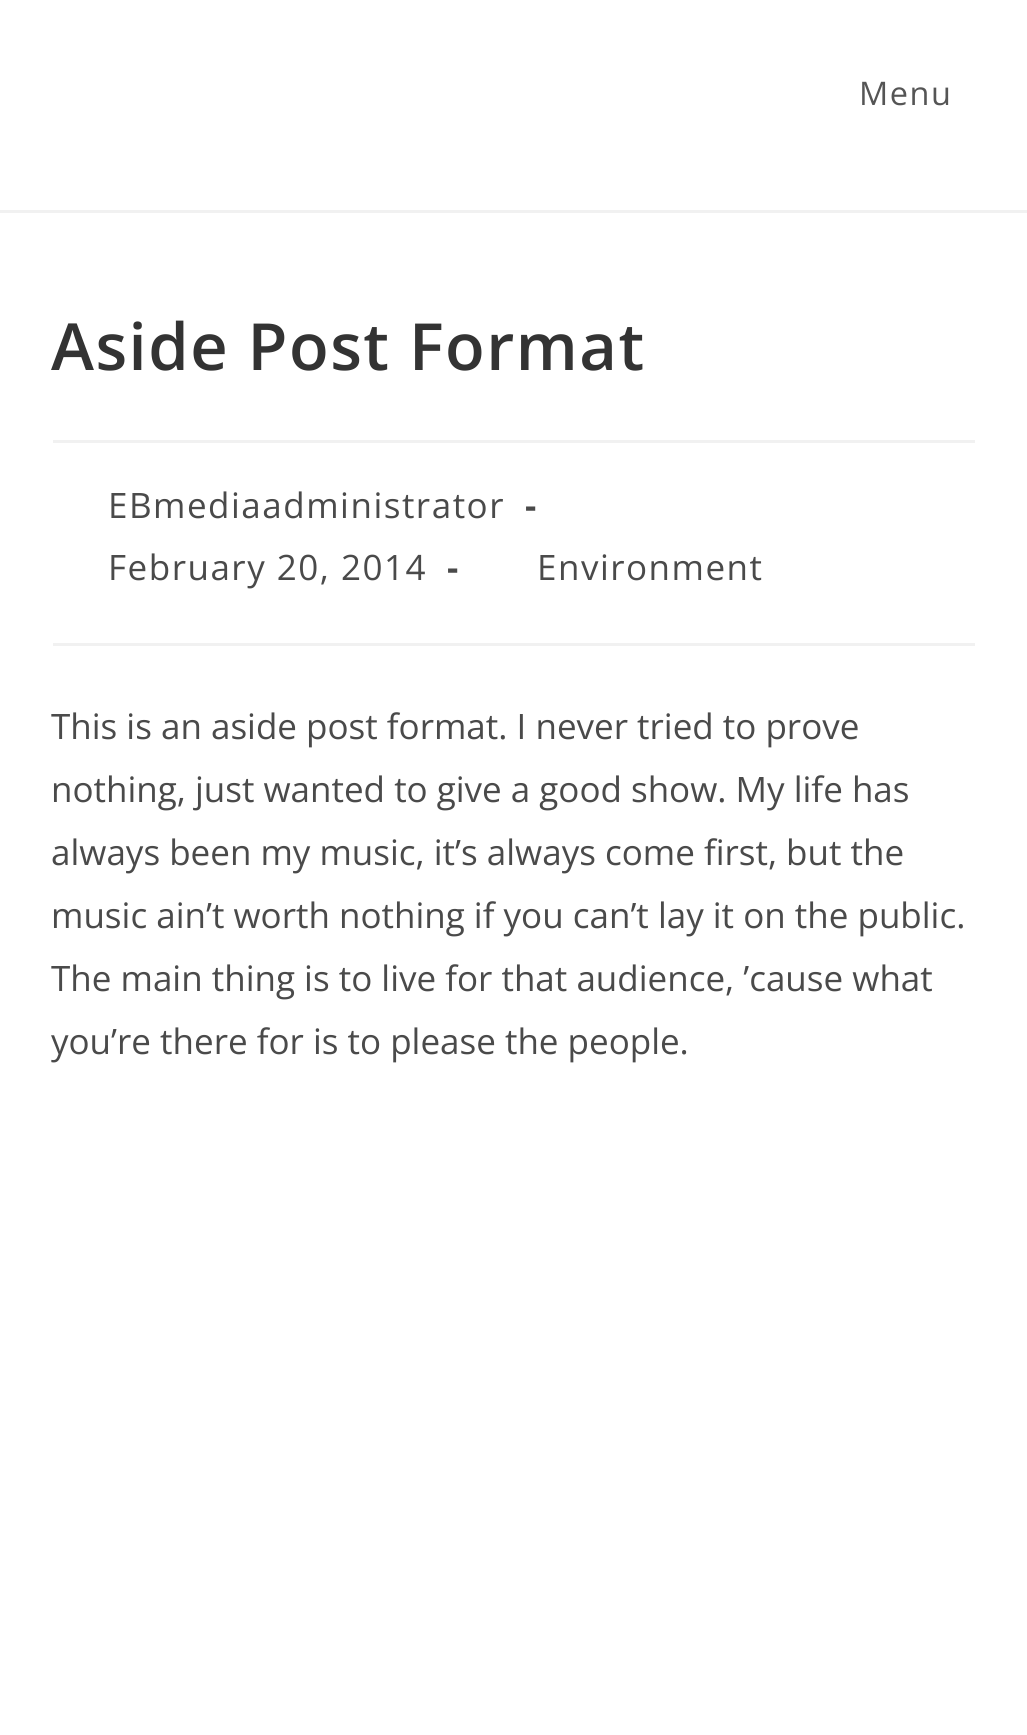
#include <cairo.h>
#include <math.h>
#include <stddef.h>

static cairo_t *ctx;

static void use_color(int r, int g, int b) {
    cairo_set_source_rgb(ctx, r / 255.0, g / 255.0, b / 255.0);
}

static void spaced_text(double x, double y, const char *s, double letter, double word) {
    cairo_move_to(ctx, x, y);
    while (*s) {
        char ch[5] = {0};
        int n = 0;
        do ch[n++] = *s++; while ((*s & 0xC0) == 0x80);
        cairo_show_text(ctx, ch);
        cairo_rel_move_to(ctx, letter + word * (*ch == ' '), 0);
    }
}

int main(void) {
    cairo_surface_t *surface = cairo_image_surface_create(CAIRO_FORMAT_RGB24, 1027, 1735);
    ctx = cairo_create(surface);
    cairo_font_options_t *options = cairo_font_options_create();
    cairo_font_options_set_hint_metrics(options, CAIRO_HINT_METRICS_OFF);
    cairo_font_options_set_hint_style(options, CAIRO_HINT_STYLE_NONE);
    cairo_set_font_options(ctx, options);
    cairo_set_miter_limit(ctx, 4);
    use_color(255, 255, 255);
    cairo_paint(ctx);
    use_color(241, 241, 241);
    cairo_rectangle(ctx, 0, 210, 1027, 3);
    cairo_fill(ctx);
    cairo_select_font_face(ctx, "Open Sans", CAIRO_FONT_SLANT_NORMAL, CAIRO_FONT_WEIGHT_NORMAL);
    cairo_set_font_size(ctx, 32.5);
    use_color(85, 85, 85);
    spaced_text(859, 105, "Menu", 1.5, 0);
    use_color(241, 241, 241);
    cairo_rectangle(ctx, 53, 440, 922, 3);
    cairo_fill(ctx);
    cairo_select_font_face(ctx, "Open Sans SemiBold", CAIRO_FONT_SLANT_NORMAL, CAIRO_FONT_WEIGHT_NORMAL);
    cairo_set_font_size(ctx, 65);
    use_color(51, 51, 51);
    spaced_text(51, 370, "Aside Post Format", 1.5, 0);
    use_color(241, 241, 241);
    cairo_rectangle(ctx, 53, 643, 922, 3);
    cairo_fill(ctx);
    cairo_select_font_face(ctx, "Open Sans", CAIRO_FONT_SLANT_NORMAL, CAIRO_FONT_WEIGHT_NORMAL);
    cairo_set_font_size(ctx, 35);
    use_color(74, 74, 74);
    spaced_text(108, 518, "EBmediaadministrator", 1.5, 0);
    cairo_select_font_face(ctx, "Open Sans", CAIRO_FONT_SLANT_NORMAL, CAIRO_FONT_WEIGHT_BOLD);
    spaced_text(525, 518, "-", 1.5, 0);
    cairo_select_font_face(ctx, "Open Sans", CAIRO_FONT_SLANT_NORMAL, CAIRO_FONT_WEIGHT_NORMAL);
    spaced_text(108, 580, "February 20, 2014", 1.5, 0);
    cairo_select_font_face(ctx, "Open Sans", CAIRO_FONT_SLANT_NORMAL, CAIRO_FONT_WEIGHT_BOLD);
    spaced_text(447, 580, "-", 1.5, 0);
    cairo_select_font_face(ctx, "Open Sans", CAIRO_FONT_SLANT_NORMAL, CAIRO_FONT_WEIGHT_NORMAL);
    spaced_text(537, 580, "Environment", 1.5, 0);
    cairo_move_to(ctx, 51, 739);
    cairo_show_text(ctx, "This is an aside post format. I never tried to prove");
    cairo_move_to(ctx, 51, 802);
    cairo_show_text(ctx, "nothing, just wanted to give a good show. My life has");
    cairo_move_to(ctx, 51, 865);
    cairo_show_text(ctx, "always been my music, it’s always come first, but the");
    cairo_move_to(ctx, 51, 928);
    cairo_show_text(ctx, "music ain’t worth nothing if you can’t lay it on the public.");
    cairo_move_to(ctx, 51, 991);
    cairo_show_text(ctx, "The main thing is to live for that audience, ’cause what");
    cairo_move_to(ctx, 51, 1054);
    cairo_show_text(ctx, "you’re there for is to please the people.");
    cairo_surface_write_to_png(surface, "result.png");
    cairo_font_options_destroy(options);
    cairo_destroy(ctx);
    cairo_surface_destroy(surface);
    return 0;
}
